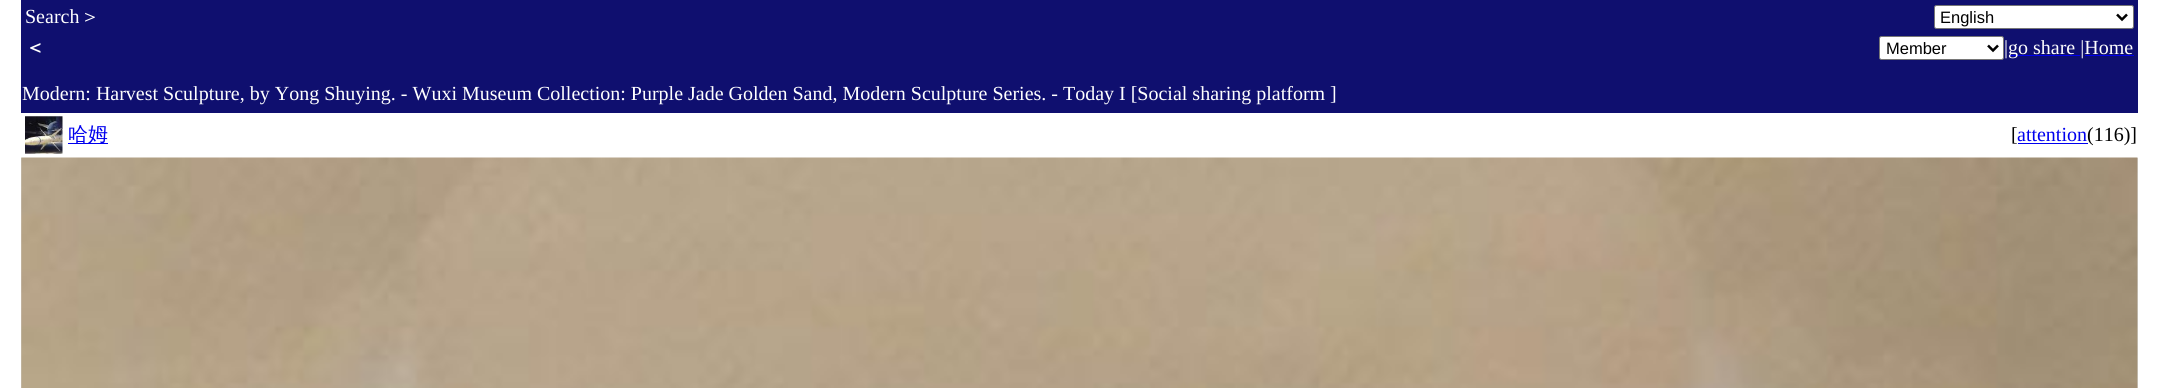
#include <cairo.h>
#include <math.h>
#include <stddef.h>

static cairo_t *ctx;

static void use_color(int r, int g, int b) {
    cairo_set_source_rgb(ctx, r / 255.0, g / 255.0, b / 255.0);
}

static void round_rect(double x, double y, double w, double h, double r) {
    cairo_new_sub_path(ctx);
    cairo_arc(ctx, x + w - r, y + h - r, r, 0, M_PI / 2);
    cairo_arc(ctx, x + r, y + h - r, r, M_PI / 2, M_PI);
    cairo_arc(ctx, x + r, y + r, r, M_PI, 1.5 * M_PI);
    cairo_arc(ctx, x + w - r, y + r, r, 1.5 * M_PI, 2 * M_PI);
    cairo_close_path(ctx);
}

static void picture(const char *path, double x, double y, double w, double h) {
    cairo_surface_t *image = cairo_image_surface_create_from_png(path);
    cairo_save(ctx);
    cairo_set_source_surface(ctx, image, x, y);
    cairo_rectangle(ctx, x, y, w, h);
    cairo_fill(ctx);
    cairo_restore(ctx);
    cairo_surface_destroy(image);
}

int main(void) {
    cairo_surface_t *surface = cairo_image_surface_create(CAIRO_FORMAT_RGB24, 2158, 388);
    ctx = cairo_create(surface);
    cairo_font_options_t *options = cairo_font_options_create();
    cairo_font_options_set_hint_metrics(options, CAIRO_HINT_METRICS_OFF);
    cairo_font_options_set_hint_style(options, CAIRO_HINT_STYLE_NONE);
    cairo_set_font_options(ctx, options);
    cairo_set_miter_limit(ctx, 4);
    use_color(255, 255, 255);
    cairo_paint(ctx);
    use_color(15, 15, 111);
    cairo_rectangle(ctx, 21, 0, 2117, 113);
    cairo_fill(ctx);
    cairo_select_font_face(ctx, "Liberation Serif", CAIRO_FONT_SLANT_NORMAL, CAIRO_FONT_WEIGHT_NORMAL);
    cairo_set_font_size(ctx, 20);
    use_color(255, 255, 255);
    cairo_move_to(ctx, 25, 23);
    cairo_show_text(ctx, "Search");
    cairo_select_font_face(ctx, "WenQuanYi Zen Hei Medium", CAIRO_FONT_SLANT_NORMAL, CAIRO_FONT_WEIGHT_NORMAL);
    cairo_move_to(ctx, 80, 23);
    cairo_show_text(ctx, "＞");
    round_rect(1934.5, 5.5, 199, 23, 2);
    cairo_fill_preserve(ctx);
    use_color(118, 118, 118);
    cairo_set_line_width(ctx, 1);
    cairo_stroke(ctx);
    cairo_new_path(ctx);
    cairo_move_to(ctx, 2117, 14.5);
    cairo_line_to(ctx, 2122, 19.5);
    cairo_line_to(ctx, 2127, 14.5);
    use_color(0, 0, 0);
    cairo_set_line_width(ctx, 2.5);
    cairo_stroke(ctx);
    cairo_select_font_face(ctx, "Liberation Sans", CAIRO_FONT_SLANT_NORMAL, CAIRO_FONT_WEIGHT_NORMAL);
    cairo_set_font_size(ctx, 16.5);
    cairo_move_to(ctx, 1940, 23);
    cairo_show_text(ctx, "English");
    cairo_select_font_face(ctx, "WenQuanYi Zen Hei", CAIRO_FONT_SLANT_NORMAL, CAIRO_FONT_WEIGHT_BOLD);
    cairo_set_font_size(ctx, 20);
    use_color(255, 255, 255);
    cairo_move_to(ctx, 25, 54);
    cairo_show_text(ctx, "＜");
    round_rect(1879.5, 36.5, 124, 23, 2);
    cairo_fill_preserve(ctx);
    use_color(118, 118, 118);
    cairo_set_line_width(ctx, 1);
    cairo_stroke(ctx);
    cairo_new_path(ctx);
    cairo_move_to(ctx, 1988, 45.5);
    cairo_line_to(ctx, 1993, 50.5);
    cairo_line_to(ctx, 1998, 45.5);
    use_color(0, 0, 0);
    cairo_set_line_width(ctx, 2.5);
    cairo_stroke(ctx);
    cairo_select_font_face(ctx, "Liberation Sans", CAIRO_FONT_SLANT_NORMAL, CAIRO_FONT_WEIGHT_NORMAL);
    cairo_set_font_size(ctx, 16.5);
    cairo_move_to(ctx, 1886, 54);
    cairo_show_text(ctx, "Member");
    cairo_select_font_face(ctx, "Liberation Serif", CAIRO_FONT_SLANT_NORMAL, CAIRO_FONT_WEIGHT_NORMAL);
    cairo_set_font_size(ctx, 20);
    use_color(255, 255, 255);
    cairo_move_to(ctx, 2004, 54);
    cairo_show_text(ctx, "|");
    use_color(0, 0, 238);
    cairo_rectangle(ctx, 2009, 55, 71, 1);
    cairo_fill(ctx);
    use_color(255, 255, 255);
    cairo_move_to(ctx, 2008, 54);
    cairo_show_text(ctx, "go share |Home");
    use_color(0, 0, 238);
    cairo_rectangle(ctx, 2085, 55, 49, 1);
    cairo_fill(ctx);
    use_color(255, 255, 255);
    cairo_move_to(ctx, 22, 100);
    cairo_show_text(ctx, "Modern: Harvest Sculpture, by Yong Shuying. - Wuxi Museum Collection: Purple Jade Golden Sand, Modern Sculpture Series. - Today I [Social sharing platform ]");
    picture("img1.png", 25, 116, 38, 38);
    use_color(0, 0, 238);
    cairo_rectangle(ctx, 68, 143, 40, 1);
    cairo_fill(ctx);
    cairo_select_font_face(ctx, "WenQuanYi Zen Hei Medium", CAIRO_FONT_SLANT_NORMAL, CAIRO_FONT_WEIGHT_NORMAL);
    cairo_move_to(ctx, 68, 141);
    cairo_show_text(ctx, "哈姆");
    cairo_select_font_face(ctx, "Liberation Serif", CAIRO_FONT_SLANT_NORMAL, CAIRO_FONT_WEIGHT_NORMAL);
    use_color(0, 0, 0);
    cairo_move_to(ctx, 2011, 141);
    cairo_show_text(ctx, "[");
    use_color(0, 0, 238);
    cairo_move_to(ctx, 2017, 141);
    cairo_show_text(ctx, "attention");
    use_color(0, 0, 0);
    cairo_move_to(ctx, 2087, 141);
    cairo_show_text(ctx, "(116)]");
    use_color(0, 0, 238);
    cairo_rectangle(ctx, 2018, 143, 70, 1);
    cairo_fill(ctx);
    use_color(221, 221, 221);
    cairo_rectangle(ctx, 21, 158, 2117, 230);
    cairo_fill(ctx);
    picture("img2.png", 21, 157, 2117, 231);
    cairo_surface_write_to_png(surface, "result.png");
    cairo_font_options_destroy(options);
    cairo_destroy(ctx);
    cairo_surface_destroy(surface);
    return 0;
}
